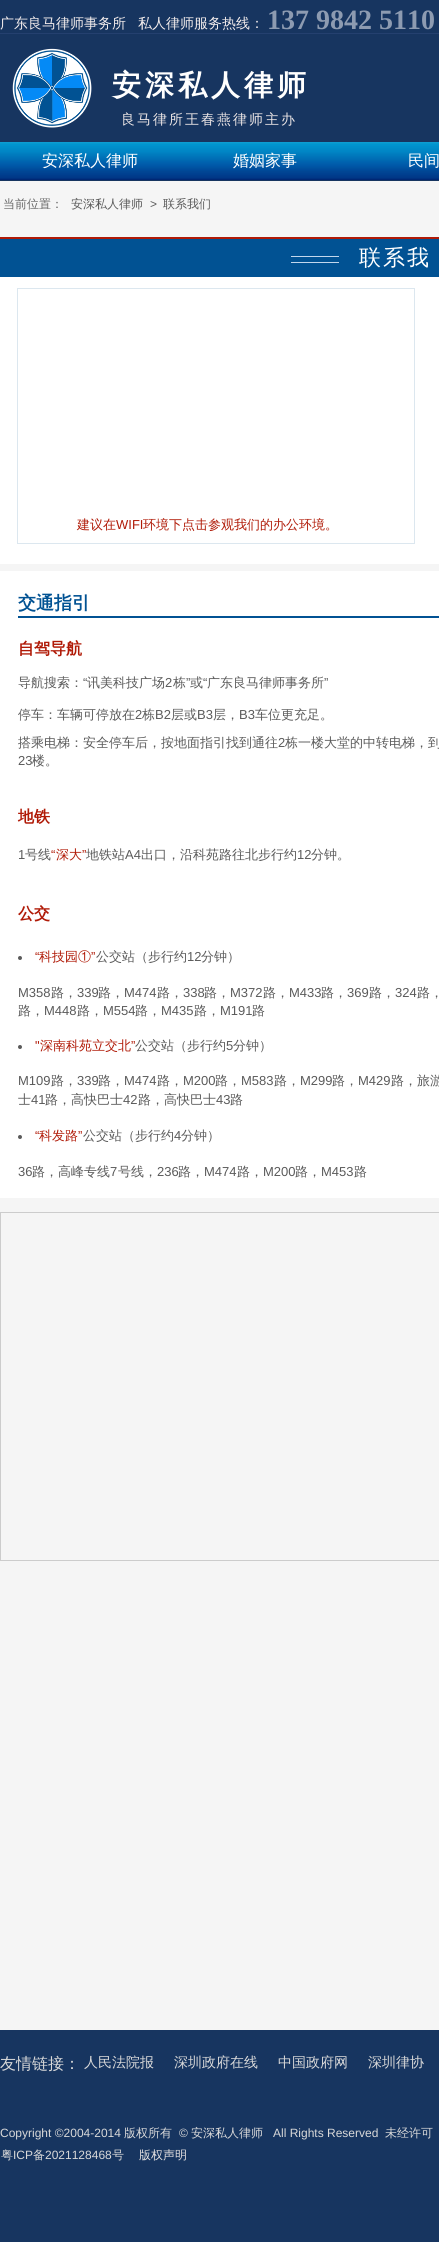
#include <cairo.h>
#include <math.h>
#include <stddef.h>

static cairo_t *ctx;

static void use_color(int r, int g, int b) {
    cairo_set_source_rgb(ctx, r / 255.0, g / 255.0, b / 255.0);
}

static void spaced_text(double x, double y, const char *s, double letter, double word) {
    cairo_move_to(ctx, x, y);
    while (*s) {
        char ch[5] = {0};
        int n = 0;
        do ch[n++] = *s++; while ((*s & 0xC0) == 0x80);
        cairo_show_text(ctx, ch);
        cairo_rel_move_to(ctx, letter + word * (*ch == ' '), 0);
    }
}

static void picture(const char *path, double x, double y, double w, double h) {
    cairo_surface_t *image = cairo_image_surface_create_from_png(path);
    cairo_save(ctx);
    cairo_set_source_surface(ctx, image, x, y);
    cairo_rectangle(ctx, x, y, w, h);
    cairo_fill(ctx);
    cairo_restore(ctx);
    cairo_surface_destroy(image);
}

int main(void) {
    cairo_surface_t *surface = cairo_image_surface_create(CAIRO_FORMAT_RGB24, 439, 2242);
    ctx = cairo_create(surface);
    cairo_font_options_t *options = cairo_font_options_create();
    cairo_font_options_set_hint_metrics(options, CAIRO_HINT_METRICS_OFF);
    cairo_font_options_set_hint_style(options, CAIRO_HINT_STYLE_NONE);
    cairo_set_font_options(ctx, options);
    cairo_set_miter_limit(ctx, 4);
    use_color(245, 245, 245);
    cairo_paint(ctx);
    use_color(23, 53, 96);
    cairo_rectangle(ctx, 0, 0, 439, 181);
    cairo_fill(ctx);
    use_color(36, 64, 111);
    cairo_rectangle(ctx, 0, 33, 439, 1);
    cairo_fill(ctx);
    cairo_select_font_face(ctx, "WenQuanYi Zen Hei Medium", CAIRO_FONT_SLANT_NORMAL, CAIRO_FONT_WEIGHT_NORMAL);
    cairo_set_font_size(ctx, 14);
    use_color(242, 236, 236);
    cairo_move_to(ctx, 0, 28);
    cairo_show_text(ctx, "广东良马律师事务所");
    cairo_move_to(ctx, 138, 28);
    cairo_show_text(ctx, "私人律师服务热线：");
    cairo_select_font_face(ctx, "Liberation Serif", CAIRO_FONT_SLANT_NORMAL, CAIRO_FONT_WEIGHT_BOLD);
    cairo_set_font_size(ctx, 28);
    use_color(141, 155, 177);
    cairo_move_to(ctx, 267, 29);
    cairo_show_text(ctx, "137 9842 5110");
    picture("img1.png", 12, 48, 80, 80);
    cairo_select_font_face(ctx, "WenQuanYi Zen Hei", CAIRO_FONT_SLANT_NORMAL, CAIRO_FONT_WEIGHT_BOLD);
    cairo_set_font_size(ctx, 29);
    use_color(255, 255, 255);
    spaced_text(112, 95, "安深私人律师", 4, 0);
    cairo_select_font_face(ctx, "WenQuanYi Zen Hei Medium", CAIRO_FONT_SLANT_NORMAL, CAIRO_FONT_WEIGHT_NORMAL);
    cairo_set_font_size(ctx, 14);
    use_color(236, 230, 230);
    spaced_text(121, 124, "良马律所王春燕律师主办", 2, 0);
    picture("img2.png", 0, 142, 439, 38);
    cairo_set_font_size(ctx, 16);
    use_color(255, 255, 255);
    cairo_move_to(ctx, 42, 166);
    cairo_show_text(ctx, "安深私人律师");
    cairo_move_to(ctx, 233, 166);
    cairo_show_text(ctx, "婚姻家事");
    cairo_move_to(ctx, 408, 166);
    cairo_show_text(ctx, "民间");
    cairo_set_font_size(ctx, 12);
    use_color(102, 102, 102);
    cairo_move_to(ctx, 3, 208);
    cairo_show_text(ctx, "当前位置：");
    use_color(90, 90, 90);
    cairo_move_to(ctx, 71, 208);
    cairo_show_text(ctx, "安深私人律师");
    cairo_select_font_face(ctx, "Liberation Sans", CAIRO_FONT_SLANT_NORMAL, CAIRO_FONT_WEIGHT_NORMAL);
    cairo_move_to(ctx, 150, 208);
    cairo_show_text(ctx, ">");
    cairo_select_font_face(ctx, "WenQuanYi Zen Hei Medium", CAIRO_FONT_SLANT_NORMAL, CAIRO_FONT_WEIGHT_NORMAL);
    cairo_move_to(ctx, 163, 208);
    cairo_show_text(ctx, "联系我们");
    use_color(255, 255, 255);
    cairo_rectangle(ctx, 0, 277, 439, 287);
    cairo_fill(ctx);
    use_color(176, 26, 7);
    cairo_rectangle(ctx, 0, 237, 439, 2);
    cairo_fill(ctx);
    use_color(1, 82, 147);
    cairo_rectangle(ctx, 0, 239, 439, 38);
    cairo_fill(ctx);
    use_color(194, 215, 237);
    cairo_rectangle(ctx, 291, 256, 48, 1);
    cairo_fill(ctx);
    cairo_set_font_size(ctx, 22);
    use_color(255, 255, 255);
    spaced_text(359, 265, "联系我", 2, 0);
    use_color(194, 215, 237);
    cairo_rectangle(ctx, 291, 262, 48, 1);
    cairo_fill(ctx);
    cairo_rectangle(ctx, 17.5, 288.5, 397, 255);
    use_color(220, 231, 239);
    cairo_set_line_width(ctx, 1);
    cairo_stroke(ctx);
    cairo_set_font_size(ctx, 13);
    use_color(176, 26, 7);
    cairo_move_to(ctx, 77, 529);
    cairo_show_text(ctx, "建议在");
    cairo_select_font_face(ctx, "Liberation Sans", CAIRO_FONT_SLANT_NORMAL, CAIRO_FONT_WEIGHT_NORMAL);
    cairo_move_to(ctx, 116, 529);
    cairo_show_text(ctx, "WIFI");
    cairo_select_font_face(ctx, "WenQuanYi Zen Hei Medium", CAIRO_FONT_SLANT_NORMAL, CAIRO_FONT_WEIGHT_NORMAL);
    cairo_move_to(ctx, 143, 529);
    cairo_show_text(ctx, "环境下点击参观我们的办公环境。");
    use_color(255, 255, 255);
    cairo_rectangle(ctx, 0, 571, 439, 627);
    cairo_fill(ctx);
    use_color(1, 82, 147);
    cairo_rectangle(ctx, 18, 616, 421, 2);
    cairo_fill(ctx);
    cairo_select_font_face(ctx, "WenQuanYi Zen Hei", CAIRO_FONT_SLANT_NORMAL, CAIRO_FONT_WEIGHT_BOLD);
    cairo_set_font_size(ctx, 18);
    cairo_move_to(ctx, 18, 609);
    cairo_show_text(ctx, "交通指引");
    cairo_set_font_size(ctx, 16);
    use_color(176, 26, 7);
    cairo_move_to(ctx, 18, 654);
    cairo_show_text(ctx, "自驾导航");
    cairo_select_font_face(ctx, "WenQuanYi Zen Hei Medium", CAIRO_FONT_SLANT_NORMAL, CAIRO_FONT_WEIGHT_NORMAL);
    cairo_set_font_size(ctx, 13);
    use_color(90, 90, 90);
    cairo_move_to(ctx, 18, 687);
    cairo_show_text(ctx, "导航搜索：");
    cairo_select_font_face(ctx, "Liberation Sans", CAIRO_FONT_SLANT_NORMAL, CAIRO_FONT_WEIGHT_NORMAL);
    cairo_move_to(ctx, 83, 687);
    cairo_show_text(ctx, "“");
    cairo_select_font_face(ctx, "WenQuanYi Zen Hei Medium", CAIRO_FONT_SLANT_NORMAL, CAIRO_FONT_WEIGHT_NORMAL);
    cairo_move_to(ctx, 87, 687);
    cairo_show_text(ctx, "讯美科技广场");
    cairo_select_font_face(ctx, "Liberation Sans", CAIRO_FONT_SLANT_NORMAL, CAIRO_FONT_WEIGHT_NORMAL);
    cairo_move_to(ctx, 165, 687);
    cairo_show_text(ctx, "2");
    cairo_select_font_face(ctx, "WenQuanYi Zen Hei Medium", CAIRO_FONT_SLANT_NORMAL, CAIRO_FONT_WEIGHT_NORMAL);
    cairo_move_to(ctx, 173, 687);
    cairo_show_text(ctx, "栋");
    cairo_select_font_face(ctx, "Liberation Sans", CAIRO_FONT_SLANT_NORMAL, CAIRO_FONT_WEIGHT_NORMAL);
    cairo_move_to(ctx, 186, 687);
    cairo_show_text(ctx, "”");
    cairo_select_font_face(ctx, "WenQuanYi Zen Hei Medium", CAIRO_FONT_SLANT_NORMAL, CAIRO_FONT_WEIGHT_NORMAL);
    cairo_move_to(ctx, 190, 687);
    cairo_show_text(ctx, "或");
    cairo_select_font_face(ctx, "Liberation Sans", CAIRO_FONT_SLANT_NORMAL, CAIRO_FONT_WEIGHT_NORMAL);
    cairo_move_to(ctx, 203, 687);
    cairo_show_text(ctx, "“");
    cairo_select_font_face(ctx, "WenQuanYi Zen Hei Medium", CAIRO_FONT_SLANT_NORMAL, CAIRO_FONT_WEIGHT_NORMAL);
    cairo_move_to(ctx, 207, 687);
    cairo_show_text(ctx, "广东良马律师事务所");
    cairo_select_font_face(ctx, "Liberation Sans", CAIRO_FONT_SLANT_NORMAL, CAIRO_FONT_WEIGHT_NORMAL);
    cairo_move_to(ctx, 324, 687);
    cairo_show_text(ctx, "”");
    cairo_select_font_face(ctx, "WenQuanYi Zen Hei Medium", CAIRO_FONT_SLANT_NORMAL, CAIRO_FONT_WEIGHT_NORMAL);
    cairo_move_to(ctx, 18, 719);
    cairo_show_text(ctx, "停车：车辆可停放在");
    cairo_select_font_face(ctx, "Liberation Sans", CAIRO_FONT_SLANT_NORMAL, CAIRO_FONT_WEIGHT_NORMAL);
    cairo_move_to(ctx, 135, 719);
    cairo_show_text(ctx, "2");
    cairo_select_font_face(ctx, "WenQuanYi Zen Hei Medium", CAIRO_FONT_SLANT_NORMAL, CAIRO_FONT_WEIGHT_NORMAL);
    cairo_move_to(ctx, 142, 719);
    cairo_show_text(ctx, "栋");
    cairo_select_font_face(ctx, "Liberation Sans", CAIRO_FONT_SLANT_NORMAL, CAIRO_FONT_WEIGHT_NORMAL);
    cairo_move_to(ctx, 155, 719);
    cairo_show_text(ctx, "B2");
    cairo_select_font_face(ctx, "WenQuanYi Zen Hei Medium", CAIRO_FONT_SLANT_NORMAL, CAIRO_FONT_WEIGHT_NORMAL);
    cairo_move_to(ctx, 171, 719);
    cairo_show_text(ctx, "层或");
    cairo_select_font_face(ctx, "Liberation Sans", CAIRO_FONT_SLANT_NORMAL, CAIRO_FONT_WEIGHT_NORMAL);
    cairo_move_to(ctx, 197, 719);
    cairo_show_text(ctx, "B3");
    cairo_select_font_face(ctx, "WenQuanYi Zen Hei Medium", CAIRO_FONT_SLANT_NORMAL, CAIRO_FONT_WEIGHT_NORMAL);
    cairo_move_to(ctx, 213, 719);
    cairo_show_text(ctx, "层，");
    cairo_select_font_face(ctx, "Liberation Sans", CAIRO_FONT_SLANT_NORMAL, CAIRO_FONT_WEIGHT_NORMAL);
    cairo_move_to(ctx, 239, 719);
    cairo_show_text(ctx, "B3");
    cairo_select_font_face(ctx, "WenQuanYi Zen Hei Medium", CAIRO_FONT_SLANT_NORMAL, CAIRO_FONT_WEIGHT_NORMAL);
    cairo_move_to(ctx, 255, 719);
    cairo_show_text(ctx, "车位更充足。");
    cairo_move_to(ctx, 18, 747);
    cairo_show_text(ctx, "搭乘电梯：安全停车后，按地面指引找到通往");
    cairo_select_font_face(ctx, "Liberation Sans", CAIRO_FONT_SLANT_NORMAL, CAIRO_FONT_WEIGHT_NORMAL);
    cairo_move_to(ctx, 278, 747);
    cairo_show_text(ctx, "2");
    cairo_select_font_face(ctx, "WenQuanYi Zen Hei Medium", CAIRO_FONT_SLANT_NORMAL, CAIRO_FONT_WEIGHT_NORMAL);
    cairo_move_to(ctx, 285, 747);
    cairo_show_text(ctx, "栋一楼大堂的中转电梯，到");
    cairo_select_font_face(ctx, "Liberation Sans", CAIRO_FONT_SLANT_NORMAL, CAIRO_FONT_WEIGHT_NORMAL);
    cairo_move_to(ctx, 18, 765);
    cairo_show_text(ctx, "23");
    cairo_select_font_face(ctx, "WenQuanYi Zen Hei Medium", CAIRO_FONT_SLANT_NORMAL, CAIRO_FONT_WEIGHT_NORMAL);
    cairo_move_to(ctx, 32, 765);
    cairo_show_text(ctx, "楼。");
    cairo_select_font_face(ctx, "WenQuanYi Zen Hei", CAIRO_FONT_SLANT_NORMAL, CAIRO_FONT_WEIGHT_BOLD);
    cairo_set_font_size(ctx, 16);
    use_color(176, 26, 7);
    cairo_move_to(ctx, 18, 822);
    cairo_show_text(ctx, "地铁");
    cairo_select_font_face(ctx, "Liberation Sans", CAIRO_FONT_SLANT_NORMAL, CAIRO_FONT_WEIGHT_NORMAL);
    cairo_set_font_size(ctx, 13);
    use_color(90, 90, 90);
    cairo_move_to(ctx, 18, 859);
    cairo_show_text(ctx, "1");
    cairo_select_font_face(ctx, "WenQuanYi Zen Hei Medium", CAIRO_FONT_SLANT_NORMAL, CAIRO_FONT_WEIGHT_NORMAL);
    cairo_move_to(ctx, 25, 859);
    cairo_show_text(ctx, "号线");
    cairo_select_font_face(ctx, "Liberation Sans", CAIRO_FONT_SLANT_NORMAL, CAIRO_FONT_WEIGHT_NORMAL);
    use_color(176, 26, 7);
    cairo_move_to(ctx, 51, 859);
    cairo_show_text(ctx, "“");
    cairo_select_font_face(ctx, "WenQuanYi Zen Hei Medium", CAIRO_FONT_SLANT_NORMAL, CAIRO_FONT_WEIGHT_NORMAL);
    cairo_move_to(ctx, 56, 859);
    cairo_show_text(ctx, "深大");
    cairo_select_font_face(ctx, "Liberation Sans", CAIRO_FONT_SLANT_NORMAL, CAIRO_FONT_WEIGHT_NORMAL);
    cairo_move_to(ctx, 82, 859);
    cairo_show_text(ctx, "”");
    cairo_select_font_face(ctx, "WenQuanYi Zen Hei Medium", CAIRO_FONT_SLANT_NORMAL, CAIRO_FONT_WEIGHT_NORMAL);
    use_color(90, 90, 90);
    cairo_move_to(ctx, 86, 859);
    cairo_show_text(ctx, "地铁站");
    cairo_select_font_face(ctx, "Liberation Sans", CAIRO_FONT_SLANT_NORMAL, CAIRO_FONT_WEIGHT_NORMAL);
    cairo_move_to(ctx, 125, 859);
    cairo_show_text(ctx, "A4");
    cairo_select_font_face(ctx, "WenQuanYi Zen Hei Medium", CAIRO_FONT_SLANT_NORMAL, CAIRO_FONT_WEIGHT_NORMAL);
    cairo_move_to(ctx, 141, 859);
    cairo_show_text(ctx, "出口，沿科苑路往北步行约");
    cairo_select_font_face(ctx, "Liberation Sans", CAIRO_FONT_SLANT_NORMAL, CAIRO_FONT_WEIGHT_NORMAL);
    cairo_move_to(ctx, 297, 859);
    cairo_show_text(ctx, "12");
    cairo_select_font_face(ctx, "WenQuanYi Zen Hei Medium", CAIRO_FONT_SLANT_NORMAL, CAIRO_FONT_WEIGHT_NORMAL);
    cairo_move_to(ctx, 311, 859);
    cairo_show_text(ctx, "分钟。");
    cairo_select_font_face(ctx, "WenQuanYi Zen Hei", CAIRO_FONT_SLANT_NORMAL, CAIRO_FONT_WEIGHT_BOLD);
    cairo_set_font_size(ctx, 16);
    use_color(176, 26, 7);
    cairo_move_to(ctx, 18, 919);
    cairo_show_text(ctx, "公交");
    cairo_select_font_face(ctx, "Liberation Sans", CAIRO_FONT_SLANT_NORMAL, CAIRO_FONT_WEIGHT_NORMAL);
    cairo_set_font_size(ctx, 13);
    cairo_move_to(ctx, 35, 961);
    cairo_show_text(ctx, "“");
    cairo_select_font_face(ctx, "WenQuanYi Zen Hei Medium", CAIRO_FONT_SLANT_NORMAL, CAIRO_FONT_WEIGHT_NORMAL);
    cairo_move_to(ctx, 39, 961);
    cairo_show_text(ctx, "科技园①");
    cairo_select_font_face(ctx, "Liberation Sans", CAIRO_FONT_SLANT_NORMAL, CAIRO_FONT_WEIGHT_NORMAL);
    cairo_move_to(ctx, 91, 961);
    cairo_show_text(ctx, "”");
    cairo_select_font_face(ctx, "WenQuanYi Zen Hei Medium", CAIRO_FONT_SLANT_NORMAL, CAIRO_FONT_WEIGHT_NORMAL);
    use_color(90, 90, 90);
    cairo_move_to(ctx, 96, 961);
    cairo_show_text(ctx, "公交站（步行约");
    cairo_select_font_face(ctx, "Liberation Sans", CAIRO_FONT_SLANT_NORMAL, CAIRO_FONT_WEIGHT_NORMAL);
    cairo_move_to(ctx, 187, 961);
    cairo_show_text(ctx, "12");
    cairo_select_font_face(ctx, "WenQuanYi Zen Hei Medium", CAIRO_FONT_SLANT_NORMAL, CAIRO_FONT_WEIGHT_NORMAL);
    cairo_move_to(ctx, 201, 961);
    cairo_show_text(ctx, "分钟）");
    cairo_new_path(ctx);
    cairo_arc(ctx, 20, 958, 2, 0, 2 * M_PI);
    cairo_fill(ctx);
    cairo_select_font_face(ctx, "Liberation Sans", CAIRO_FONT_SLANT_NORMAL, CAIRO_FONT_WEIGHT_NORMAL);
    cairo_move_to(ctx, 18, 997);
    cairo_show_text(ctx, "M358");
    cairo_select_font_face(ctx, "WenQuanYi Zen Hei Medium", CAIRO_FONT_SLANT_NORMAL, CAIRO_FONT_WEIGHT_NORMAL);
    cairo_move_to(ctx, 51, 997);
    cairo_show_text(ctx, "路，");
    cairo_select_font_face(ctx, "Liberation Sans", CAIRO_FONT_SLANT_NORMAL, CAIRO_FONT_WEIGHT_NORMAL);
    cairo_move_to(ctx, 77, 997);
    cairo_show_text(ctx, "339");
    cairo_select_font_face(ctx, "WenQuanYi Zen Hei Medium", CAIRO_FONT_SLANT_NORMAL, CAIRO_FONT_WEIGHT_NORMAL);
    cairo_move_to(ctx, 98, 997);
    cairo_show_text(ctx, "路，");
    cairo_select_font_face(ctx, "Liberation Sans", CAIRO_FONT_SLANT_NORMAL, CAIRO_FONT_WEIGHT_NORMAL);
    cairo_move_to(ctx, 124, 997);
    cairo_show_text(ctx, "M474");
    cairo_select_font_face(ctx, "WenQuanYi Zen Hei Medium", CAIRO_FONT_SLANT_NORMAL, CAIRO_FONT_WEIGHT_NORMAL);
    cairo_move_to(ctx, 157, 997);
    cairo_show_text(ctx, "路，");
    cairo_select_font_face(ctx, "Liberation Sans", CAIRO_FONT_SLANT_NORMAL, CAIRO_FONT_WEIGHT_NORMAL);
    cairo_move_to(ctx, 183, 997);
    cairo_show_text(ctx, "338");
    cairo_select_font_face(ctx, "WenQuanYi Zen Hei Medium", CAIRO_FONT_SLANT_NORMAL, CAIRO_FONT_WEIGHT_NORMAL);
    cairo_move_to(ctx, 204, 997);
    cairo_show_text(ctx, "路，");
    cairo_select_font_face(ctx, "Liberation Sans", CAIRO_FONT_SLANT_NORMAL, CAIRO_FONT_WEIGHT_NORMAL);
    cairo_move_to(ctx, 230, 997);
    cairo_show_text(ctx, "M372");
    cairo_select_font_face(ctx, "WenQuanYi Zen Hei Medium", CAIRO_FONT_SLANT_NORMAL, CAIRO_FONT_WEIGHT_NORMAL);
    cairo_move_to(ctx, 263, 997);
    cairo_show_text(ctx, "路，");
    cairo_select_font_face(ctx, "Liberation Sans", CAIRO_FONT_SLANT_NORMAL, CAIRO_FONT_WEIGHT_NORMAL);
    cairo_move_to(ctx, 289, 997);
    cairo_show_text(ctx, "M433");
    cairo_select_font_face(ctx, "WenQuanYi Zen Hei Medium", CAIRO_FONT_SLANT_NORMAL, CAIRO_FONT_WEIGHT_NORMAL);
    cairo_move_to(ctx, 321, 997);
    cairo_show_text(ctx, "路，");
    cairo_select_font_face(ctx, "Liberation Sans", CAIRO_FONT_SLANT_NORMAL, CAIRO_FONT_WEIGHT_NORMAL);
    cairo_move_to(ctx, 347, 997);
    cairo_show_text(ctx, "369");
    cairo_select_font_face(ctx, "WenQuanYi Zen Hei Medium", CAIRO_FONT_SLANT_NORMAL, CAIRO_FONT_WEIGHT_NORMAL);
    cairo_move_to(ctx, 369, 997);
    cairo_show_text(ctx, "路，");
    cairo_select_font_face(ctx, "Liberation Sans", CAIRO_FONT_SLANT_NORMAL, CAIRO_FONT_WEIGHT_NORMAL);
    cairo_move_to(ctx, 395, 997);
    cairo_show_text(ctx, "324");
    cairo_select_font_face(ctx, "WenQuanYi Zen Hei Medium", CAIRO_FONT_SLANT_NORMAL, CAIRO_FONT_WEIGHT_NORMAL);
    cairo_move_to(ctx, 417, 997);
    cairo_show_text(ctx, "路，");
    cairo_move_to(ctx, 18, 1015);
    cairo_show_text(ctx, "路，");
    cairo_select_font_face(ctx, "Liberation Sans", CAIRO_FONT_SLANT_NORMAL, CAIRO_FONT_WEIGHT_NORMAL);
    cairo_move_to(ctx, 44, 1015);
    cairo_show_text(ctx, "M448");
    cairo_select_font_face(ctx, "WenQuanYi Zen Hei Medium", CAIRO_FONT_SLANT_NORMAL, CAIRO_FONT_WEIGHT_NORMAL);
    cairo_move_to(ctx, 77, 1015);
    cairo_show_text(ctx, "路，");
    cairo_select_font_face(ctx, "Liberation Sans", CAIRO_FONT_SLANT_NORMAL, CAIRO_FONT_WEIGHT_NORMAL);
    cairo_move_to(ctx, 103, 1015);
    cairo_show_text(ctx, "M554");
    cairo_select_font_face(ctx, "WenQuanYi Zen Hei Medium", CAIRO_FONT_SLANT_NORMAL, CAIRO_FONT_WEIGHT_NORMAL);
    cairo_move_to(ctx, 135, 1015);
    cairo_show_text(ctx, "路，");
    cairo_select_font_face(ctx, "Liberation Sans", CAIRO_FONT_SLANT_NORMAL, CAIRO_FONT_WEIGHT_NORMAL);
    cairo_move_to(ctx, 161, 1015);
    cairo_show_text(ctx, "M435");
    cairo_select_font_face(ctx, "WenQuanYi Zen Hei Medium", CAIRO_FONT_SLANT_NORMAL, CAIRO_FONT_WEIGHT_NORMAL);
    cairo_move_to(ctx, 194, 1015);
    cairo_show_text(ctx, "路，");
    cairo_select_font_face(ctx, "Liberation Sans", CAIRO_FONT_SLANT_NORMAL, CAIRO_FONT_WEIGHT_NORMAL);
    cairo_move_to(ctx, 220, 1015);
    cairo_show_text(ctx, "M191");
    cairo_select_font_face(ctx, "WenQuanYi Zen Hei Medium", CAIRO_FONT_SLANT_NORMAL, CAIRO_FONT_WEIGHT_NORMAL);
    cairo_move_to(ctx, 252, 1015);
    cairo_show_text(ctx, "路");
    cairo_new_path(ctx);
    cairo_arc(ctx, 20, 1047, 2, 0, 2 * M_PI);
    cairo_fill(ctx);
    cairo_select_font_face(ctx, "Liberation Sans", CAIRO_FONT_SLANT_NORMAL, CAIRO_FONT_WEIGHT_NORMAL);
    use_color(176, 26, 7);
    cairo_move_to(ctx, 35, 1050);
    cairo_show_text(ctx, "\"");
    cairo_select_font_face(ctx, "WenQuanYi Zen Hei Medium", CAIRO_FONT_SLANT_NORMAL, CAIRO_FONT_WEIGHT_NORMAL);
    cairo_move_to(ctx, 40, 1050);
    cairo_show_text(ctx, "深南科苑立交北");
    cairo_select_font_face(ctx, "Liberation Sans", CAIRO_FONT_SLANT_NORMAL, CAIRO_FONT_WEIGHT_NORMAL);
    cairo_move_to(ctx, 131, 1050);
    cairo_show_text(ctx, "”");
    cairo_select_font_face(ctx, "WenQuanYi Zen Hei Medium", CAIRO_FONT_SLANT_NORMAL, CAIRO_FONT_WEIGHT_NORMAL);
    use_color(90, 90, 90);
    cairo_move_to(ctx, 135, 1050);
    cairo_show_text(ctx, "公交站（步行约");
    cairo_select_font_face(ctx, "Liberation Sans", CAIRO_FONT_SLANT_NORMAL, CAIRO_FONT_WEIGHT_NORMAL);
    cairo_move_to(ctx, 226, 1050);
    cairo_show_text(ctx, "5");
    cairo_select_font_face(ctx, "WenQuanYi Zen Hei Medium", CAIRO_FONT_SLANT_NORMAL, CAIRO_FONT_WEIGHT_NORMAL);
    cairo_move_to(ctx, 233, 1050);
    cairo_show_text(ctx, "分钟）");
    cairo_select_font_face(ctx, "Liberation Sans", CAIRO_FONT_SLANT_NORMAL, CAIRO_FONT_WEIGHT_NORMAL);
    cairo_move_to(ctx, 18, 1085);
    cairo_show_text(ctx, "M109");
    cairo_select_font_face(ctx, "WenQuanYi Zen Hei Medium", CAIRO_FONT_SLANT_NORMAL, CAIRO_FONT_WEIGHT_NORMAL);
    cairo_move_to(ctx, 51, 1085);
    cairo_show_text(ctx, "路，");
    cairo_select_font_face(ctx, "Liberation Sans", CAIRO_FONT_SLANT_NORMAL, CAIRO_FONT_WEIGHT_NORMAL);
    cairo_move_to(ctx, 77, 1085);
    cairo_show_text(ctx, "339");
    cairo_select_font_face(ctx, "WenQuanYi Zen Hei Medium", CAIRO_FONT_SLANT_NORMAL, CAIRO_FONT_WEIGHT_NORMAL);
    cairo_move_to(ctx, 98, 1085);
    cairo_show_text(ctx, "路，");
    cairo_select_font_face(ctx, "Liberation Sans", CAIRO_FONT_SLANT_NORMAL, CAIRO_FONT_WEIGHT_NORMAL);
    cairo_move_to(ctx, 124, 1085);
    cairo_show_text(ctx, "M474");
    cairo_select_font_face(ctx, "WenQuanYi Zen Hei Medium", CAIRO_FONT_SLANT_NORMAL, CAIRO_FONT_WEIGHT_NORMAL);
    cairo_move_to(ctx, 157, 1085);
    cairo_show_text(ctx, "路，");
    cairo_select_font_face(ctx, "Liberation Sans", CAIRO_FONT_SLANT_NORMAL, CAIRO_FONT_WEIGHT_NORMAL);
    cairo_move_to(ctx, 183, 1085);
    cairo_show_text(ctx, "M200");
    cairo_select_font_face(ctx, "WenQuanYi Zen Hei Medium", CAIRO_FONT_SLANT_NORMAL, CAIRO_FONT_WEIGHT_NORMAL);
    cairo_move_to(ctx, 215, 1085);
    cairo_show_text(ctx, "路，");
    cairo_select_font_face(ctx, "Liberation Sans", CAIRO_FONT_SLANT_NORMAL, CAIRO_FONT_WEIGHT_NORMAL);
    cairo_move_to(ctx, 241, 1085);
    cairo_show_text(ctx, "M583");
    cairo_select_font_face(ctx, "WenQuanYi Zen Hei Medium", CAIRO_FONT_SLANT_NORMAL, CAIRO_FONT_WEIGHT_NORMAL);
    cairo_move_to(ctx, 274, 1085);
    cairo_show_text(ctx, "路，");
    cairo_select_font_face(ctx, "Liberation Sans", CAIRO_FONT_SLANT_NORMAL, CAIRO_FONT_WEIGHT_NORMAL);
    cairo_move_to(ctx, 300, 1085);
    cairo_show_text(ctx, "M299");
    cairo_select_font_face(ctx, "WenQuanYi Zen Hei Medium", CAIRO_FONT_SLANT_NORMAL, CAIRO_FONT_WEIGHT_NORMAL);
    cairo_move_to(ctx, 332, 1085);
    cairo_show_text(ctx, "路，");
    cairo_select_font_face(ctx, "Liberation Sans", CAIRO_FONT_SLANT_NORMAL, CAIRO_FONT_WEIGHT_NORMAL);
    cairo_move_to(ctx, 358, 1085);
    cairo_show_text(ctx, "M429");
    cairo_select_font_face(ctx, "WenQuanYi Zen Hei Medium", CAIRO_FONT_SLANT_NORMAL, CAIRO_FONT_WEIGHT_NORMAL);
    cairo_move_to(ctx, 391, 1085);
    cairo_show_text(ctx, "路，旅游");
    cairo_move_to(ctx, 18, 1104);
    cairo_show_text(ctx, "士");
    cairo_select_font_face(ctx, "Liberation Sans", CAIRO_FONT_SLANT_NORMAL, CAIRO_FONT_WEIGHT_NORMAL);
    cairo_move_to(ctx, 31, 1104);
    cairo_show_text(ctx, "41");
    cairo_select_font_face(ctx, "WenQuanYi Zen Hei Medium", CAIRO_FONT_SLANT_NORMAL, CAIRO_FONT_WEIGHT_NORMAL);
    cairo_move_to(ctx, 45, 1104);
    cairo_show_text(ctx, "路，高快巴士");
    cairo_select_font_face(ctx, "Liberation Sans", CAIRO_FONT_SLANT_NORMAL, CAIRO_FONT_WEIGHT_NORMAL);
    cairo_move_to(ctx, 123, 1104);
    cairo_show_text(ctx, "42");
    cairo_select_font_face(ctx, "WenQuanYi Zen Hei Medium", CAIRO_FONT_SLANT_NORMAL, CAIRO_FONT_WEIGHT_NORMAL);
    cairo_move_to(ctx, 138, 1104);
    cairo_show_text(ctx, "路，高快巴士");
    cairo_select_font_face(ctx, "Liberation Sans", CAIRO_FONT_SLANT_NORMAL, CAIRO_FONT_WEIGHT_NORMAL);
    cairo_move_to(ctx, 216, 1104);
    cairo_show_text(ctx, "43");
    cairo_select_font_face(ctx, "WenQuanYi Zen Hei Medium", CAIRO_FONT_SLANT_NORMAL, CAIRO_FONT_WEIGHT_NORMAL);
    cairo_move_to(ctx, 230, 1104);
    cairo_show_text(ctx, "路");
    cairo_new_path(ctx);
    cairo_arc(ctx, 20, 1137, 2, 0, 2 * M_PI);
    cairo_fill(ctx);
    cairo_select_font_face(ctx, "Liberation Sans", CAIRO_FONT_SLANT_NORMAL, CAIRO_FONT_WEIGHT_NORMAL);
    use_color(176, 26, 7);
    cairo_move_to(ctx, 35, 1140);
    cairo_show_text(ctx, "“");
    cairo_select_font_face(ctx, "WenQuanYi Zen Hei Medium", CAIRO_FONT_SLANT_NORMAL, CAIRO_FONT_WEIGHT_NORMAL);
    cairo_move_to(ctx, 39, 1140);
    cairo_show_text(ctx, "科发路");
    cairo_select_font_face(ctx, "Liberation Sans", CAIRO_FONT_SLANT_NORMAL, CAIRO_FONT_WEIGHT_NORMAL);
    cairo_move_to(ctx, 78, 1140);
    cairo_show_text(ctx, "”");
    cairo_select_font_face(ctx, "WenQuanYi Zen Hei Medium", CAIRO_FONT_SLANT_NORMAL, CAIRO_FONT_WEIGHT_NORMAL);
    use_color(90, 90, 90);
    cairo_move_to(ctx, 83, 1140);
    cairo_show_text(ctx, "公交站（步行约");
    cairo_select_font_face(ctx, "Liberation Sans", CAIRO_FONT_SLANT_NORMAL, CAIRO_FONT_WEIGHT_NORMAL);
    cairo_move_to(ctx, 174, 1140);
    cairo_show_text(ctx, "4");
    cairo_select_font_face(ctx, "WenQuanYi Zen Hei Medium", CAIRO_FONT_SLANT_NORMAL, CAIRO_FONT_WEIGHT_NORMAL);
    cairo_move_to(ctx, 181, 1140);
    cairo_show_text(ctx, "分钟）");
    cairo_select_font_face(ctx, "Liberation Sans", CAIRO_FONT_SLANT_NORMAL, CAIRO_FONT_WEIGHT_NORMAL);
    cairo_move_to(ctx, 18, 1176);
    cairo_show_text(ctx, "36");
    cairo_select_font_face(ctx, "WenQuanYi Zen Hei Medium", CAIRO_FONT_SLANT_NORMAL, CAIRO_FONT_WEIGHT_NORMAL);
    cairo_move_to(ctx, 32, 1176);
    cairo_show_text(ctx, "路，高峰专线");
    cairo_select_font_face(ctx, "Liberation Sans", CAIRO_FONT_SLANT_NORMAL, CAIRO_FONT_WEIGHT_NORMAL);
    cairo_move_to(ctx, 110, 1176);
    cairo_show_text(ctx, "7");
    cairo_select_font_face(ctx, "WenQuanYi Zen Hei Medium", CAIRO_FONT_SLANT_NORMAL, CAIRO_FONT_WEIGHT_NORMAL);
    cairo_move_to(ctx, 118, 1176);
    cairo_show_text(ctx, "号线，");
    cairo_select_font_face(ctx, "Liberation Sans", CAIRO_FONT_SLANT_NORMAL, CAIRO_FONT_WEIGHT_NORMAL);
    cairo_move_to(ctx, 157, 1176);
    cairo_show_text(ctx, "236");
    cairo_select_font_face(ctx, "WenQuanYi Zen Hei Medium", CAIRO_FONT_SLANT_NORMAL, CAIRO_FONT_WEIGHT_NORMAL);
    cairo_move_to(ctx, 178, 1176);
    cairo_show_text(ctx, "路，");
    cairo_select_font_face(ctx, "Liberation Sans", CAIRO_FONT_SLANT_NORMAL, CAIRO_FONT_WEIGHT_NORMAL);
    cairo_move_to(ctx, 204, 1176);
    cairo_show_text(ctx, "M474");
    cairo_select_font_face(ctx, "WenQuanYi Zen Hei Medium", CAIRO_FONT_SLANT_NORMAL, CAIRO_FONT_WEIGHT_NORMAL);
    cairo_move_to(ctx, 237, 1176);
    cairo_show_text(ctx, "路，");
    cairo_select_font_face(ctx, "Liberation Sans", CAIRO_FONT_SLANT_NORMAL, CAIRO_FONT_WEIGHT_NORMAL);
    cairo_move_to(ctx, 263, 1176);
    cairo_show_text(ctx, "M200");
    cairo_select_font_face(ctx, "WenQuanYi Zen Hei Medium", CAIRO_FONT_SLANT_NORMAL, CAIRO_FONT_WEIGHT_NORMAL);
    cairo_move_to(ctx, 295, 1176);
    cairo_show_text(ctx, "路，");
    cairo_select_font_face(ctx, "Liberation Sans", CAIRO_FONT_SLANT_NORMAL, CAIRO_FONT_WEIGHT_NORMAL);
    cairo_move_to(ctx, 321, 1176);
    cairo_show_text(ctx, "M453");
    cairo_select_font_face(ctx, "WenQuanYi Zen Hei Medium", CAIRO_FONT_SLANT_NORMAL, CAIRO_FONT_WEIGHT_NORMAL);
    cairo_move_to(ctx, 354, 1176);
    cairo_show_text(ctx, "路");
    cairo_rectangle(ctx, 0.5, 1212.5, 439, 348);
    use_color(204, 204, 204);
    cairo_stroke(ctx);
    use_color(23, 53, 96);
    cairo_rectangle(ctx, 0, 2030, 439, 212);
    cairo_fill(ctx);
    cairo_set_font_size(ctx, 16);
    use_color(217, 217, 217);
    cairo_move_to(ctx, 0, 2069);
    cairo_show_text(ctx, "友情链接：");
    cairo_set_font_size(ctx, 14);
    cairo_move_to(ctx, 84, 2067);
    cairo_show_text(ctx, "人民法院报");
    cairo_move_to(ctx, 174, 2067);
    cairo_show_text(ctx, "深圳政府在线");
    cairo_move_to(ctx, 278, 2067);
    cairo_show_text(ctx, "中国政府网");
    cairo_move_to(ctx, 368, 2067);
    cairo_show_text(ctx, "深圳律协");
    cairo_select_font_face(ctx, "Liberation Sans", CAIRO_FONT_SLANT_NORMAL, CAIRO_FONT_WEIGHT_NORMAL);
    cairo_set_font_size(ctx, 12);
    cairo_move_to(ctx, 0, 2137);
    cairo_show_text(ctx, "Copyright ©2004-2014");
    cairo_select_font_face(ctx, "WenQuanYi Zen Hei Medium", CAIRO_FONT_SLANT_NORMAL, CAIRO_FONT_WEIGHT_NORMAL);
    cairo_move_to(ctx, 124, 2137);
    cairo_show_text(ctx, "版权所有");
    cairo_select_font_face(ctx, "Liberation Sans", CAIRO_FONT_SLANT_NORMAL, CAIRO_FONT_WEIGHT_NORMAL);
    cairo_move_to(ctx, 179, 2137);
    cairo_show_text(ctx, "©");
    cairo_select_font_face(ctx, "WenQuanYi Zen Hei Medium", CAIRO_FONT_SLANT_NORMAL, CAIRO_FONT_WEIGHT_NORMAL);
    cairo_move_to(ctx, 191, 2137);
    cairo_show_text(ctx, "安深私人律师");
    cairo_select_font_face(ctx, "Liberation Sans", CAIRO_FONT_SLANT_NORMAL, CAIRO_FONT_WEIGHT_NORMAL);
    cairo_move_to(ctx, 273, 2137);
    cairo_show_text(ctx, "All Rights Reserved");
    cairo_select_font_face(ctx, "WenQuanYi Zen Hei Medium", CAIRO_FONT_SLANT_NORMAL, CAIRO_FONT_WEIGHT_NORMAL);
    cairo_move_to(ctx, 385, 2137);
    cairo_show_text(ctx, "未经许可");
    cairo_move_to(ctx, 1, 2159);
    cairo_show_text(ctx, "粤");
    cairo_select_font_face(ctx, "Liberation Sans", CAIRO_FONT_SLANT_NORMAL, CAIRO_FONT_WEIGHT_NORMAL);
    cairo_move_to(ctx, 13, 2159);
    cairo_show_text(ctx, "ICP");
    cairo_select_font_face(ctx, "WenQuanYi Zen Hei Medium", CAIRO_FONT_SLANT_NORMAL, CAIRO_FONT_WEIGHT_NORMAL);
    cairo_move_to(ctx, 33, 2159);
    cairo_show_text(ctx, "备");
    cairo_select_font_face(ctx, "Liberation Sans", CAIRO_FONT_SLANT_NORMAL, CAIRO_FONT_WEIGHT_NORMAL);
    cairo_move_to(ctx, 45, 2159);
    cairo_show_text(ctx, "2021128468");
    cairo_select_font_face(ctx, "WenQuanYi Zen Hei Medium", CAIRO_FONT_SLANT_NORMAL, CAIRO_FONT_WEIGHT_NORMAL);
    cairo_move_to(ctx, 112, 2159);
    cairo_show_text(ctx, "号");
    use_color(229, 225, 225);
    cairo_move_to(ctx, 139, 2159);
    cairo_show_text(ctx, "版权声明");
    cairo_surface_write_to_png(surface, "result.png");
    cairo_font_options_destroy(options);
    cairo_destroy(ctx);
    cairo_surface_destroy(surface);
    return 0;
}
